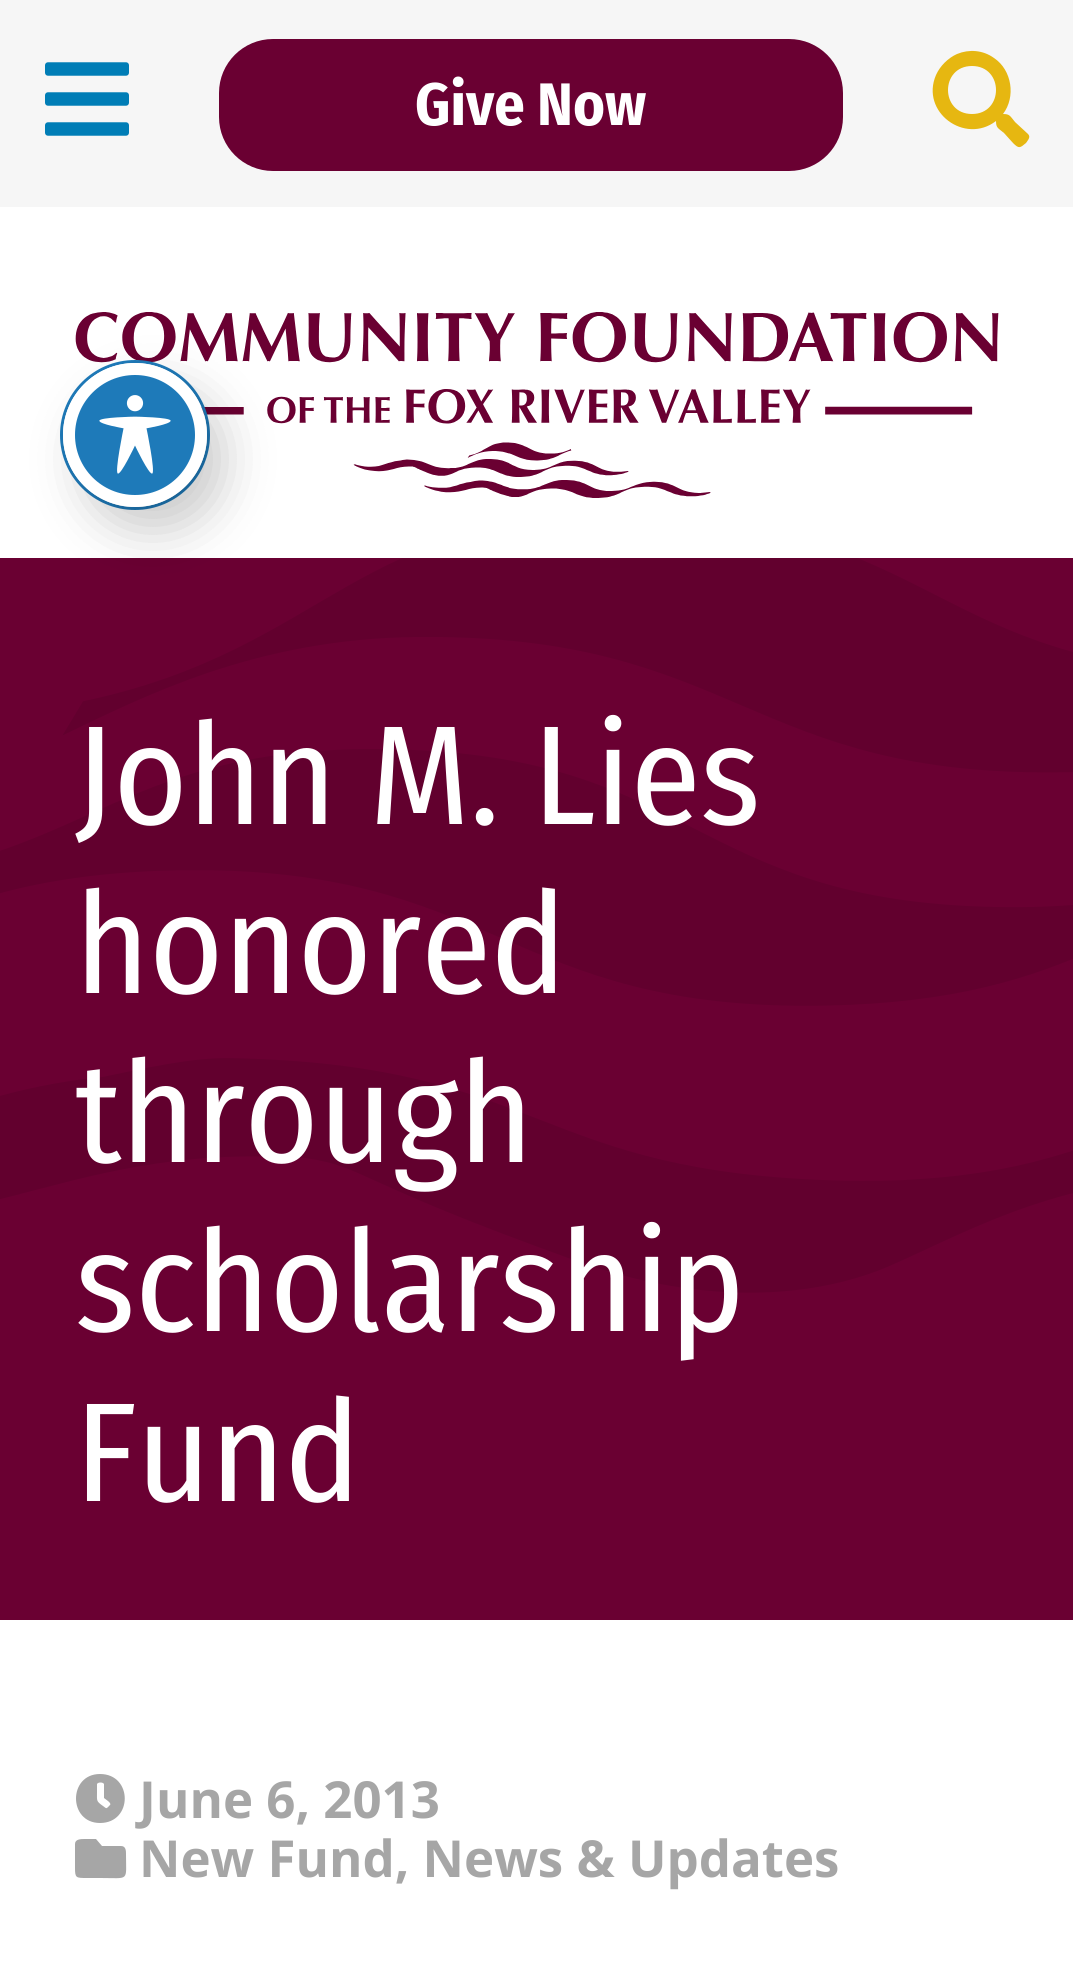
#include <cairo.h>
#include <math.h>
#include <stddef.h>

static cairo_t *ctx;

static void use_color(int r, int g, int b) {
    cairo_set_source_rgb(ctx, r / 255.0, g / 255.0, b / 255.0);
}

static void round_rect(double x, double y, double w, double h, double r) {
    cairo_new_sub_path(ctx);
    cairo_arc(ctx, x + w - r, y + h - r, r, 0, M_PI / 2);
    cairo_arc(ctx, x + r, y + h - r, r, M_PI / 2, M_PI);
    cairo_arc(ctx, x + r, y + r, r, M_PI, 1.5 * M_PI);
    cairo_arc(ctx, x + w - r, y + r, r, 1.5 * M_PI, 2 * M_PI);
    cairo_close_path(ctx);
}

static void shadow(double x, double y, double w, double h, double r, double blur, double alpha) {
    cairo_push_group_with_content(ctx, CAIRO_CONTENT_ALPHA);
    cairo_set_operator(ctx, CAIRO_OPERATOR_SOURCE);
    for (int i = 15; i >= -15 && fmin(w, h) + blur * i / 3 > 0; i -= 2) {
        double e = blur * i / 6;
        cairo_set_source_rgba(ctx, 0, 0, 0, alpha * erfc((i - 1) / 8.5) / 2);
        round_rect(x - e, y - e, w + 2 * e, h + 2 * e, fmax(0, fmin(r + e + blur * .6, fmin(w, h) / 2 + e)));
        cairo_fill(ctx);
    }
    cairo_pattern_t *soft = cairo_pop_group(ctx);
    cairo_mask(ctx, soft);
    cairo_pattern_destroy(soft);
}

static void picture(const char *path, double x, double y, double w, double h) {
    cairo_surface_t *image = cairo_image_surface_create_from_png(path);
    cairo_save(ctx);
    cairo_set_source_surface(ctx, image, x, y);
    cairo_rectangle(ctx, x, y, w, h);
    cairo_fill(ctx);
    cairo_restore(ctx);
    cairo_surface_destroy(image);
}

int main(void) {
    cairo_surface_t *surface = cairo_image_surface_create(CAIRO_FORMAT_RGB24, 1073, 1967);
    ctx = cairo_create(surface);
    cairo_font_options_t *options = cairo_font_options_create();
    cairo_font_options_set_hint_metrics(options, CAIRO_HINT_METRICS_OFF);
    cairo_font_options_set_hint_style(options, CAIRO_HINT_STYLE_NONE);
    cairo_set_font_options(ctx, options);
    cairo_set_miter_limit(ctx, 4);
    use_color(246, 246, 246);
    cairo_paint(ctx);
    picture("img1.png", 45, 62, 84, 74);
    use_color(106, 0, 50);
    round_rect(219, 39, 624, 132, 54);
    cairo_fill(ctx);
    cairo_select_font_face(ctx, "Fira Sans Condensed", CAIRO_FONT_SLANT_NORMAL, CAIRO_FONT_WEIGHT_BOLD);
    cairo_set_font_size(ctx, 60);
    use_color(255, 255, 255);
    cairo_move_to(ctx, 415, 125);
    cairo_show_text(ctx, "Give Now");
    use_color(230, 183, 17);
    cairo_new_path(ctx);
    cairo_move_to(ctx, 1028, 134);
    cairo_line_to(ctx, 1015, 122);
    cairo_curve_to(ctx, 1010, 116, 1010, 114, 1003, 114);
    cairo_curve_to(ctx, 1016, 97, 1012, 70, 994, 58);
    cairo_curve_to(ctx, 983, 50, 969, 49, 957, 54);
    cairo_curve_to(ctx, 948, 58, 940, 66, 936, 75);
    cairo_curve_to(ctx, 920, 112, 965, 145, 996, 121);
    cairo_curve_to(ctx, 996, 128, 998, 128, 1004, 133);
    cairo_line_to(ctx, 1013, 143);
    cairo_curve_to(ctx, 1019, 149, 1020, 148, 1026, 143);
    cairo_curve_to(ctx, 1028, 140, 1031, 137, 1028, 134);
    cairo_close_path(ctx);
    cairo_move_to(ctx, 972, 114);
    cairo_curve_to(ctx, 940, 114, 940, 66, 972, 66);
    cairo_curve_to(ctx, 1004, 66, 1004, 114, 972, 114);
    cairo_close_path(ctx);
    cairo_fill(ctx);
    use_color(255, 255, 255);
    cairo_rectangle(ctx, 0, 207, 1073, 351);
    cairo_fill(ctx);
    picture("img2.png", 75, 312, 924, 186);
    use_color(106, 0, 50);
    cairo_rectangle(ctx, 0, 558, 1073, 1062);
    cairo_fill(ctx);
    picture("img3.png", 0, 558, 1073, 735);
    cairo_select_font_face(ctx, "Fira Sans Condensed", CAIRO_FONT_SLANT_NORMAL, CAIRO_FONT_WEIGHT_NORMAL);
    cairo_set_font_size(ctx, 141);
    use_color(255, 255, 255);
    cairo_move_to(ctx, 75, 824);
    cairo_show_text(ctx, "John M. Lies");
    cairo_move_to(ctx, 75, 993);
    cairo_show_text(ctx, "honored");
    cairo_move_to(ctx, 75, 1162);
    cairo_show_text(ctx, "through");
    cairo_move_to(ctx, 75, 1331);
    cairo_show_text(ctx, "scholarship");
    cairo_move_to(ctx, 75, 1501);
    cairo_show_text(ctx, "Fund");
    cairo_rectangle(ctx, 0, 1620, 1073, 347);
    cairo_fill(ctx);
    use_color(166, 166, 166);
    cairo_new_path(ctx);
    cairo_move_to(ctx, 100, 1774);
    cairo_curve_to(ctx, 68, 1774, 68, 1823, 100, 1823);
    cairo_curve_to(ctx, 133, 1823, 133, 1774, 100, 1774);
    cairo_close_path(ctx);
    cairo_move_to(ctx, 110, 1805);
    cairo_curve_to(ctx, 106, 1809, 107, 1809, 103, 1806);
    cairo_curve_to(ctx, 96, 1801, 97, 1801, 97, 1792);
    cairo_line_to(ctx, 97, 1784);
    cairo_curve_to(ctx, 98, 1782, 103, 1782, 104, 1784);
    cairo_line_to(ctx, 104, 1798);
    cairo_curve_to(ctx, 105, 1799, 112, 1803, 110, 1805);
    cairo_close_path(ctx);
    cairo_fill(ctx);
    cairo_select_font_face(ctx, "Open Sans", CAIRO_FONT_SLANT_NORMAL, CAIRO_FONT_WEIGHT_BOLD);
    cairo_set_font_size(ctx, 51);
    cairo_move_to(ctx, 139, 1818);
    cairo_show_text(ctx, "June 6, 2013");
    cairo_new_path(ctx);
    cairo_move_to(ctx, 121, 1846);
    cairo_line_to(ctx, 102, 1846);
    cairo_line_to(ctx, 96, 1839);
    cairo_line_to(ctx, 85, 1839);
    cairo_curve_to(ctx, 81, 1839, 75, 1839, 75, 1844);
    cairo_line_to(ctx, 75, 1868);
    cairo_curve_to(ctx, 75, 1878, 76, 1878, 87, 1878);
    cairo_line_to(ctx, 100, 1878);
    cairo_curve_to(ctx, 130, 1878, 126, 1882, 126, 1854);
    cairo_curve_to(ctx, 126, 1851, 126, 1846, 121, 1846);
    cairo_close_path(ctx);
    cairo_fill(ctx);
    cairo_move_to(ctx, 139, 1877);
    cairo_show_text(ctx, "New Fund, News & Updates");
    cairo_new_path(ctx);
    cairo_arc(ctx, 135, 435, 73.5, 0, 2 * M_PI);
    use_color(30, 122, 185);
    cairo_set_line_width(ctx, 3);
    cairo_stroke(ctx);
    use_color(0, 0, 0);
    shadow(81, 387, 144, 144, 72, 24, 0.2);
    use_color(30, 122, 185);
    cairo_arc(ctx, 135, 435, 66, 0, 2 * M_PI);
    cairo_fill_preserve(ctx);
    use_color(255, 255, 255);
    cairo_set_line_width(ctx, 12);
    cairo_stroke(ctx);
    picture("img4.png", 99, 395, 72, 79);
    cairo_surface_write_to_png(surface, "result.png");
    cairo_font_options_destroy(options);
    cairo_destroy(ctx);
    cairo_surface_destroy(surface);
    return 0;
}
